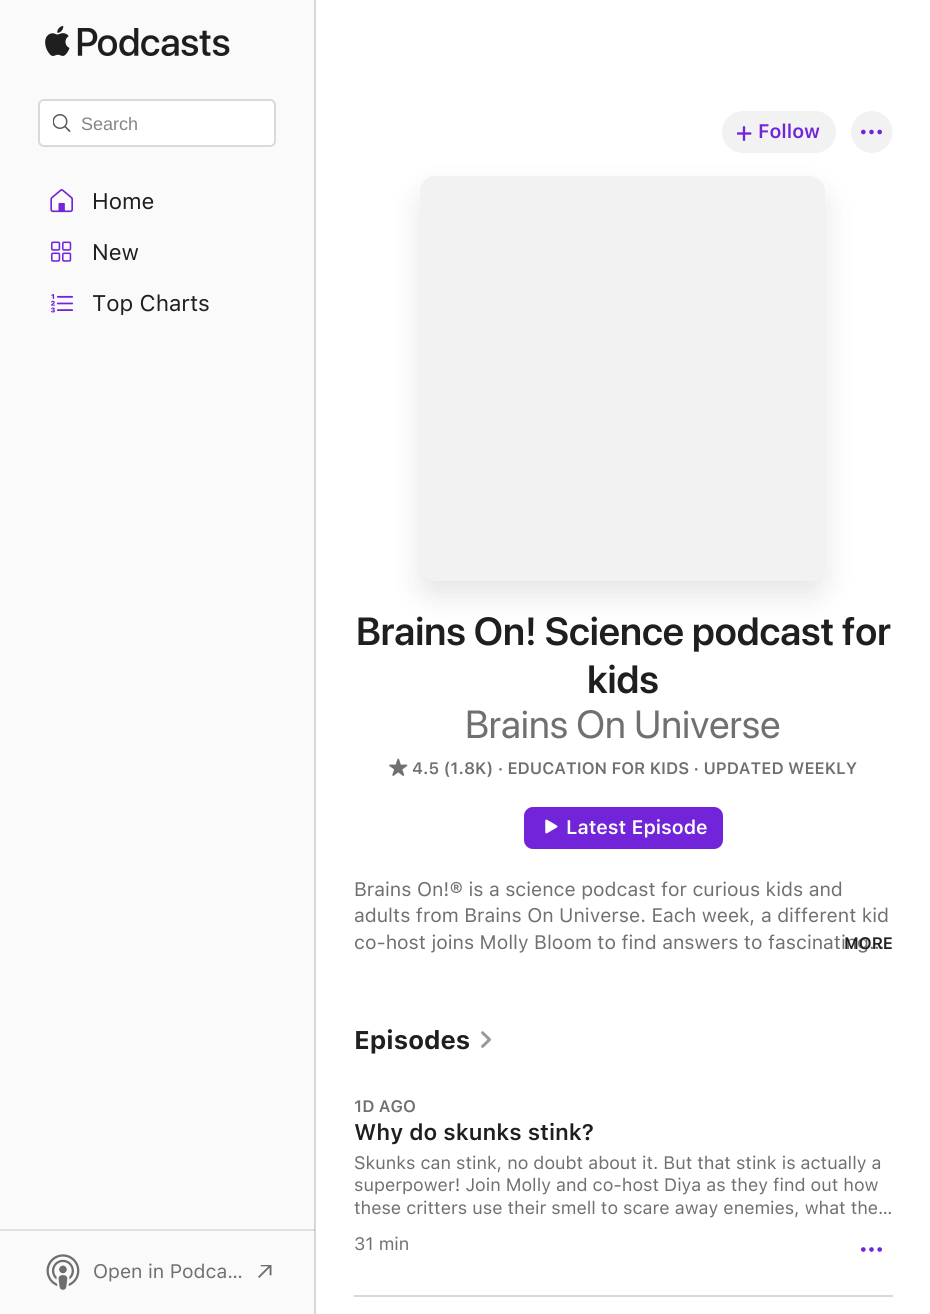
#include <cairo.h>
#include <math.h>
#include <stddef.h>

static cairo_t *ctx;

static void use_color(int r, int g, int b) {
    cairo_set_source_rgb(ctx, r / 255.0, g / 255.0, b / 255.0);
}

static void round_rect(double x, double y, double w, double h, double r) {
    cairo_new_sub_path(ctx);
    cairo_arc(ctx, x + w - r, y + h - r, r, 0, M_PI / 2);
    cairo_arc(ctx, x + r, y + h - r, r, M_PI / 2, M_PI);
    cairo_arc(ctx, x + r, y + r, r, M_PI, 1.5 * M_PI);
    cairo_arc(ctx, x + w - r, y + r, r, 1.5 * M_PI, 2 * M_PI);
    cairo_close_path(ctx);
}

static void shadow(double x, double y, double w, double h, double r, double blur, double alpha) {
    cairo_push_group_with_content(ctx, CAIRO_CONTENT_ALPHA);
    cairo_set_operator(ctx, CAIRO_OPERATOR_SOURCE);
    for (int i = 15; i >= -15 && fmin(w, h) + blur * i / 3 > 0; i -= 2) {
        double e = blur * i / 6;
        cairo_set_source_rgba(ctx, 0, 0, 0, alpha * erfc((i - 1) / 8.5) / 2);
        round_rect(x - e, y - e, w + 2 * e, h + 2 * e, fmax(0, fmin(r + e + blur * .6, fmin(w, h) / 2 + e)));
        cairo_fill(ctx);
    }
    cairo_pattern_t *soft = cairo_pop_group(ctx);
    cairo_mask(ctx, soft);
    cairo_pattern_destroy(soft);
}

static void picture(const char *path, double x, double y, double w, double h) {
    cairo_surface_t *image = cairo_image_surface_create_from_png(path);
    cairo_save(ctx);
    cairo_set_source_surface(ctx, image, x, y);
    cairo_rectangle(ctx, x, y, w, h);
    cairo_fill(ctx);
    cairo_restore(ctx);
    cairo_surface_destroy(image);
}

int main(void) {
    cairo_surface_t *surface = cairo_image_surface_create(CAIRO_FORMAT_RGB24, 930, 1314);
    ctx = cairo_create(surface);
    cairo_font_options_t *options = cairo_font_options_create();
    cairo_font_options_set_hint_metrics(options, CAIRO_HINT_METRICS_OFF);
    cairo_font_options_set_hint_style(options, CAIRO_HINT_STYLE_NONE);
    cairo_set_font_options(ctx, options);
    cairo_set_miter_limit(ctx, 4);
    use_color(255, 255, 255);
    cairo_paint(ctx);
    use_color(217, 217, 217);
    cairo_rectangle(ctx, 315, 0, 1, 1314);
    cairo_fill(ctx);
    use_color(250, 250, 250);
    cairo_rectangle(ctx, 0, 0, 314, 1314);
    cairo_fill(ctx);
    use_color(225, 225, 225);
    cairo_rectangle(ctx, 0, 1229, 315, 2);
    cairo_fill(ctx);
    use_color(213, 213, 213);
    cairo_rectangle(ctx, 314, 0, 1, 1314);
    cairo_fill(ctx);
    use_color(192, 192, 192);
    cairo_rectangle(ctx, 314, 1229, 1, 2);
    cairo_fill(ctx);
    picture("img1.png", 45, 26, 185, 31);
    use_color(255, 255, 255);
    round_rect(39, 100, 236, 46, 5);
    cairo_fill_preserve(ctx);
    use_color(217, 217, 217);
    cairo_stroke(ctx);
    picture("img2.png", 53, 114, 18, 18);
    cairo_select_font_face(ctx, "Liberation Sans", CAIRO_FONT_SLANT_NORMAL, CAIRO_FONT_WEIGHT_NORMAL);
    cairo_set_font_size(ctx, 18);
    use_color(133, 133, 133);
    cairo_move_to(ctx, 81, 130);
    cairo_show_text(ctx, "Search");
    picture("img3.png", 50, 189, 23, 24);
    cairo_select_font_face(ctx, "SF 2", CAIRO_FONT_SLANT_NORMAL, CAIRO_FONT_WEIGHT_NORMAL);
    cairo_set_font_size(ctx, 22.5);
    use_color(31, 31, 31);
    cairo_move_to(ctx, 92, 209);
    cairo_show_text(ctx, "Home");
    picture("img4.png", 51, 241, 21, 21);
    cairo_move_to(ctx, 92, 260);
    cairo_show_text(ctx, "New");
    picture("img5.png", 51, 294, 23, 19);
    cairo_move_to(ctx, 92, 311);
    cairo_show_text(ctx, "Top Charts");
    picture("img6.png", 46, 1254, 34, 36);
    cairo_set_font_size(ctx, 19.5);
    use_color(112, 112, 112);
    cairo_move_to(ctx, 93, 1278);
    cairo_show_text(ctx, "Open in Podca…");
    picture("img7.png", 258, 1265, 14, 13);
    use_color(242, 242, 242);
    round_rect(722, 111, 114, 42, 21);
    cairo_fill(ctx);
    picture("img8.png", 737, 126, 15, 15);
    cairo_select_font_face(ctx, "SF SemiBold", CAIRO_FONT_SLANT_NORMAL, CAIRO_FONT_WEIGHT_NORMAL);
    use_color(114, 36, 216);
    cairo_move_to(ctx, 758, 138);
    cairo_show_text(ctx, "Follow");
    picture("img9.png", 851, 111, 42, 42);
    use_color(0, 0, 0);
    shadow(420, 191, 405, 405, 15, 15, 0.1);
    use_color(255, 255, 255);
    round_rect(420, 176, 405, 405, 15);
    cairo_fill(ctx);
    cairo_set_source_rgba(ctx, 0.502, 0.502, 0.502, 0.1);
    cairo_new_path(ctx);
    cairo_move_to(ctx, 435, 176);
    cairo_line_to(ctx, 810, 176);
    cairo_curve_to(ctx, 818, 176, 825, 183, 825, 191);
    cairo_line_to(ctx, 825, 566);
    cairo_curve_to(ctx, 825, 574, 818, 581, 810, 581);
    cairo_line_to(ctx, 435, 581);
    cairo_curve_to(ctx, 427, 581, 420, 574, 420, 566);
    cairo_line_to(ctx, 420, 191);
    cairo_curve_to(ctx, 420, 183, 427, 176, 435, 176);
    cairo_close_path(ctx);
    cairo_fill(ctx);
    cairo_select_font_face(ctx, "SF 2 SemiBold", CAIRO_FONT_SLANT_NORMAL, CAIRO_FONT_WEIGHT_NORMAL);
    cairo_set_font_size(ctx, 39);
    use_color(31, 31, 31);
    cairo_move_to(ctx, 356, 645);
    cairo_show_text(ctx, "Brains On! Science podcast for");
    cairo_move_to(ctx, 587, 693);
    cairo_show_text(ctx, "kids");
    cairo_select_font_face(ctx, "SF", CAIRO_FONT_SLANT_NORMAL, CAIRO_FONT_WEIGHT_NORMAL);
    use_color(112, 112, 112);
    cairo_move_to(ctx, 465, 738);
    cairo_show_text(ctx, "Brains On Universe");
    picture("img10.png", 389, 758, 19, 18);
    cairo_select_font_face(ctx, "SF SemiBold", CAIRO_FONT_SLANT_NORMAL, CAIRO_FONT_WEIGHT_NORMAL);
    cairo_set_font_size(ctx, 16.5);
    cairo_move_to(ctx, 412, 774);
    cairo_show_text(ctx, "4.5 (1.8K) · EDUCATION FOR KIDS · UPDATED WEEKLY");
    use_color(114, 36, 216);
    round_rect(524, 807, 199, 42, 9);
    cairo_fill(ctx);
    picture("img11.png", 545, 819, 13, 15);
    cairo_set_font_size(ctx, 19.5);
    use_color(255, 255, 255);
    cairo_move_to(ctx, 566, 834);
    cairo_show_text(ctx, "Latest Episode");
    cairo_select_font_face(ctx, "SF 2", CAIRO_FONT_SLANT_NORMAL, CAIRO_FONT_WEIGHT_NORMAL);
    use_color(112, 112, 112);
    cairo_move_to(ctx, 354, 896);
    cairo_show_text(ctx, "Brains On!® is a science podcast for curious kids and");
    cairo_move_to(ctx, 354, 922);
    cairo_show_text(ctx, "adults from Brains On Universe. Each week, a different kid");
    cairo_move_to(ctx, 354, 949);
    cairo_show_text(ctx, "co-host joins Molly Bloom to find answers to fascinating…");
    cairo_select_font_face(ctx, "SF SemiBold", CAIRO_FONT_SLANT_NORMAL, CAIRO_FONT_WEIGHT_NORMAL);
    cairo_set_font_size(ctx, 16.5);
    use_color(31, 31, 31);
    cairo_move_to(ctx, 844, 949);
    cairo_show_text(ctx, "MORE");
    cairo_select_font_face(ctx, "SF", CAIRO_FONT_SLANT_NORMAL, CAIRO_FONT_WEIGHT_BOLD);
    cairo_set_font_size(ctx, 25.5);
    cairo_move_to(ctx, 354, 1049);
    cairo_show_text(ctx, "Episodes");
    picture("img12.png", 481, 1031, 10, 17);
    use_color(217, 217, 217);
    cairo_rectangle(ctx, 354, 1295, 539, 2);
    cairo_fill(ctx);
    cairo_select_font_face(ctx, "SF SemiBold", CAIRO_FONT_SLANT_NORMAL, CAIRO_FONT_WEIGHT_NORMAL);
    cairo_set_font_size(ctx, 16.5);
    use_color(112, 112, 112);
    cairo_move_to(ctx, 354, 1112);
    cairo_show_text(ctx, "1D AGO");
    cairo_set_font_size(ctx, 22.5);
    use_color(31, 31, 31);
    cairo_move_to(ctx, 354, 1140);
    cairo_show_text(ctx, "Why do skunks stink?");
    cairo_select_font_face(ctx, "SF 2", CAIRO_FONT_SLANT_NORMAL, CAIRO_FONT_WEIGHT_NORMAL);
    cairo_set_font_size(ctx, 18);
    use_color(112, 112, 112);
    cairo_move_to(ctx, 354, 1169);
    cairo_show_text(ctx, "Skunks can stink, no doubt about it. But that stink is actually a");
    cairo_move_to(ctx, 354, 1191);
    cairo_show_text(ctx, "superpower! Join Molly and co-host Diya as they find out how");
    cairo_move_to(ctx, 354, 1214);
    cairo_show_text(ctx, "these critters use their smell to scare away enemies, what the…");
    cairo_move_to(ctx, 354, 1250);
    cairo_show_text(ctx, "31 min");
    picture("img13.png", 861, 1247, 21, 5);
    cairo_surface_write_to_png(surface, "result.png");
    cairo_font_options_destroy(options);
    cairo_destroy(ctx);
    cairo_surface_destroy(surface);
    return 0;
}
